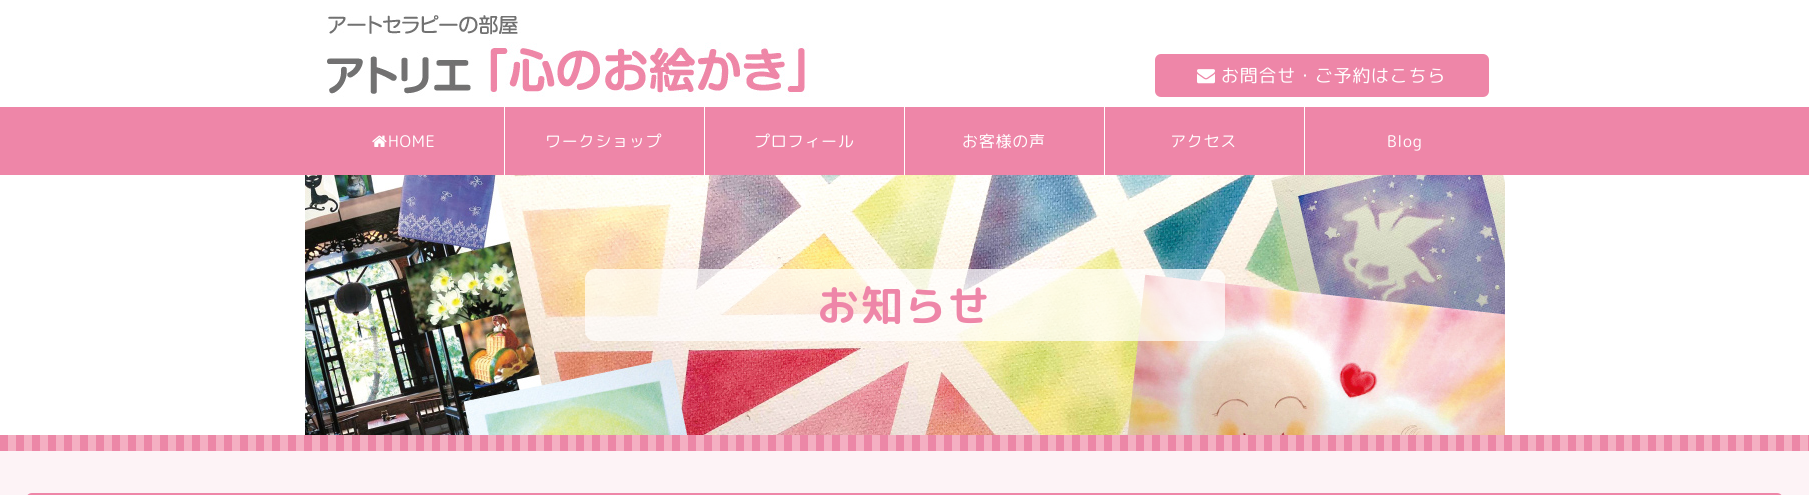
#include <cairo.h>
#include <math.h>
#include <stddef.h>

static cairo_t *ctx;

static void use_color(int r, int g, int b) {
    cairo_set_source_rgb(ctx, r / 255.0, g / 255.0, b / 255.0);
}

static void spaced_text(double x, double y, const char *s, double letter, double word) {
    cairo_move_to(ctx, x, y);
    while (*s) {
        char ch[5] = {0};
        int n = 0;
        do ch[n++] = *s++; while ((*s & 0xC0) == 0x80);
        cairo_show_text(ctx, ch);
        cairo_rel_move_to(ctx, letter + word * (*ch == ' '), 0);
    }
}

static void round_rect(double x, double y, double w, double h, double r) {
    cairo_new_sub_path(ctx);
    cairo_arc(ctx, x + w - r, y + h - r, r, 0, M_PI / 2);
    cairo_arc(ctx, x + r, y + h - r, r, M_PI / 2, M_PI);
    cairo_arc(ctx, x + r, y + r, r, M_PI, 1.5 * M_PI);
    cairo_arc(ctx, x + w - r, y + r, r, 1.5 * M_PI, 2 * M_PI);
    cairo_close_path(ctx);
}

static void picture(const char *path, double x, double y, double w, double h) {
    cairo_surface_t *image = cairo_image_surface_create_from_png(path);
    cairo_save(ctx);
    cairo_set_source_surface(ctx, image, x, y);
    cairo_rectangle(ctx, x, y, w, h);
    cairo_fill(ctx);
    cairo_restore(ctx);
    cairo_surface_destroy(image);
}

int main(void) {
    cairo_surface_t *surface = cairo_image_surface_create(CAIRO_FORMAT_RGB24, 1809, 495);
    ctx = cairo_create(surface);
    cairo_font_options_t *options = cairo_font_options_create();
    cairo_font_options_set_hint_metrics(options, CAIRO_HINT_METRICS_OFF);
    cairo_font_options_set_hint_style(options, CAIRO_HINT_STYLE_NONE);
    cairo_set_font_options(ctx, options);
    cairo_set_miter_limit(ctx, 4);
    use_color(255, 255, 255);
    cairo_paint(ctx);
    picture("img1.png", 327, 15, 482, 82);
    use_color(238, 134, 168);
    round_rect(1155, 54, 334, 43, 6);
    cairo_fill(ctx);
    picture("img2.png", 1197, 69, 18, 15);
    cairo_select_font_face(ctx, "Rounded Mplus 1c", CAIRO_FONT_SLANT_NORMAL, CAIRO_FONT_WEIGHT_NORMAL);
    cairo_set_font_size(ctx, 18);
    use_color(255, 255, 255);
    spaced_text(1221, 82, "お問合せ・ご予約はこちら", 0.75, 0);
    use_color(238, 134, 168);
    cairo_rectangle(ctx, 0, 107, 1809, 68);
    cairo_fill(ctx);
    use_color(255, 255, 255);
    cairo_rectangle(ctx, 504, 107, 1, 68);
    cairo_fill(ctx);
    picture("img3.png", 372, 135, 15, 12);
    cairo_set_font_size(ctx, 16);
    spaced_text(388, 147, "HOME", 0.75, 0);
    cairo_rectangle(ctx, 704, 107, 1, 68);
    cairo_fill(ctx);
    spaced_text(545, 147, "ワークショップ", 0.75, 0);
    cairo_rectangle(ctx, 904, 107, 1, 68);
    cairo_fill(ctx);
    spaced_text(754, 147, "プロフィール", 0.75, 0);
    cairo_rectangle(ctx, 1104, 107, 1, 68);
    cairo_fill(ctx);
    spaced_text(962, 147, "お客様の声", 0.75, 0);
    cairo_rectangle(ctx, 1304, 107, 1, 68);
    cairo_fill(ctx);
    spaced_text(1170, 147, "アクセス", 0.75, 0);
    spaced_text(1387, 147, "Blog", 0.75, 0);
    use_color(253, 243, 246);
    cairo_rectangle(ctx, 0, 451, 1809, 44);
    cairo_fill(ctx);
    picture("img4.png", 305, 175, 1200, 260);
    cairo_set_source_rgba(ctx, 1, 1, 1, 0.7);
    round_rect(585, 269, 640, 72, 10);
    cairo_fill(ctx);
    cairo_select_font_face(ctx, "Rounded Mplus 1c Bold", CAIRO_FONT_SLANT_NORMAL, CAIRO_FONT_WEIGHT_BOLD);
    cairo_set_font_size(ctx, 42);
    use_color(238, 134, 168);
    spaced_text(817, 321, "お知らせ", 1.5, 0);
    picture("img5.png", 0, 435, 1809, 16);
    round_rect(26, 493, 1757, 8, 6);
    cairo_fill(ctx);
    cairo_surface_write_to_png(surface, "result.png");
    cairo_font_options_destroy(options);
    cairo_destroy(ctx);
    cairo_surface_destroy(surface);
    return 0;
}
